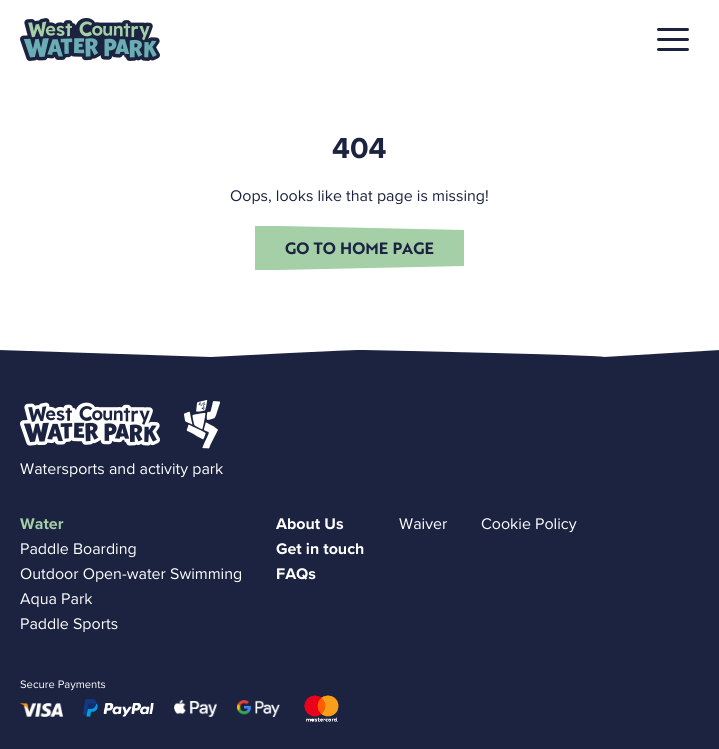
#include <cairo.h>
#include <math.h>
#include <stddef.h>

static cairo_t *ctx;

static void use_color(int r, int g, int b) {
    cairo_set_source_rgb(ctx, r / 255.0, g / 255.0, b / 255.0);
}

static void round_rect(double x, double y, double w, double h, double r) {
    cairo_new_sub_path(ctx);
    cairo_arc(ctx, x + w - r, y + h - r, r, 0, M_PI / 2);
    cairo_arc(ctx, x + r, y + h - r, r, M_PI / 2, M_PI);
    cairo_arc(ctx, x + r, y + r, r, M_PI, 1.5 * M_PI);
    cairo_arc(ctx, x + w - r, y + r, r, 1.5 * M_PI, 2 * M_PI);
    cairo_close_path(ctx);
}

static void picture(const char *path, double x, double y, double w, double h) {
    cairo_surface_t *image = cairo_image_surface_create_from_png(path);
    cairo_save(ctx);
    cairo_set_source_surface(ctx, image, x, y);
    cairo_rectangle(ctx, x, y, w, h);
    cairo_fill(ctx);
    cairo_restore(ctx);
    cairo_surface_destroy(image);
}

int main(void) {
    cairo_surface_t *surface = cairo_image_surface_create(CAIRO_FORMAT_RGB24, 719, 749);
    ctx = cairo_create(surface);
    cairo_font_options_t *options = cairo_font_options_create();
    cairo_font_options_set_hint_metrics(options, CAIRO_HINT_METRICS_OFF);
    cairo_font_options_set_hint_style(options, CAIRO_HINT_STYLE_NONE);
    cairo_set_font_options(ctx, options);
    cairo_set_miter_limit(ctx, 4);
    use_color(255, 255, 255);
    cairo_paint(ctx);
    picture("img1.png", 20, 18, 140, 43);
    use_color(27, 35, 64);
    round_rect(657, 38, 32, 3, 1.5);
    cairo_fill(ctx);
    round_rect(657, 28, 32, 3, 1.5);
    cairo_fill(ctx);
    round_rect(657, 48, 32, 3, 1.5);
    cairo_fill(ctx);
    cairo_select_font_face(ctx, "Proxima Nova", CAIRO_FONT_SLANT_NORMAL, CAIRO_FONT_WEIGHT_BOLD);
    cairo_set_font_size(ctx, 30);
    cairo_move_to(ctx, 332, 158);
    cairo_show_text(ctx, "404");
    cairo_select_font_face(ctx, "Proxima Nova", CAIRO_FONT_SLANT_NORMAL, CAIRO_FONT_WEIGHT_NORMAL);
    cairo_set_font_size(ctx, 16);
    cairo_move_to(ctx, 230, 201);
    cairo_show_text(ctx, "Oops, looks like that page is missing!");
    use_color(164, 207, 167);
    cairo_new_path(ctx);
    cairo_move_to(ctx, 255, 226);
    cairo_line_to(ctx, 255, 270);
    cairo_line_to(ctx, 276, 270);
    cairo_line_to(ctx, 464, 266);
    cairo_line_to(ctx, 464, 230);
    cairo_line_to(ctx, 278, 226);
    cairo_close_path(ctx);
    cairo_fill(ctx);
    cairo_select_font_face(ctx, "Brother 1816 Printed", CAIRO_FONT_SLANT_NORMAL, CAIRO_FONT_WEIGHT_BOLD);
    use_color(27, 35, 64);
    cairo_move_to(ctx, 285, 254);
    cairo_show_text(ctx, "GO TO HOME PAGE");
    cairo_save(ctx);
    cairo_rectangle(ctx, 0, 350, 719, 30);
    cairo_clip(ctx);
    cairo_new_path(ctx);
    cairo_move_to(ctx, -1, 350);
    cairo_line_to(ctx, 211, 357);
    cairo_curve_to(ctx, 211, 357, 363, 349, 364, 350);
    cairo_curve_to(ctx, 365, 350, 604, 355, 604, 357);
    cairo_line_to(ctx, 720, 350);
    cairo_line_to(ctx, 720, 535);
    cairo_line_to(ctx, -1, 535);
    cairo_close_path(ctx);
    cairo_fill(ctx);
    cairo_restore(ctx);
    cairo_rectangle(ctx, 0, 380, 719, 369);
    cairo_fill(ctx);
    picture("img2.png", 20, 400, 200, 49);
    cairo_select_font_face(ctx, "Proxima Nova", CAIRO_FONT_SLANT_NORMAL, CAIRO_FONT_WEIGHT_NORMAL);
    use_color(255, 255, 255);
    cairo_move_to(ctx, 20, 474);
    cairo_show_text(ctx, "Watersports and activity park");
    cairo_select_font_face(ctx, "Proxima Nova", CAIRO_FONT_SLANT_NORMAL, CAIRO_FONT_WEIGHT_BOLD);
    use_color(164, 207, 167);
    cairo_move_to(ctx, 20, 529);
    cairo_show_text(ctx, "Water");
    cairo_select_font_face(ctx, "Proxima Nova", CAIRO_FONT_SLANT_NORMAL, CAIRO_FONT_WEIGHT_NORMAL);
    use_color(255, 255, 255);
    cairo_move_to(ctx, 20, 554);
    cairo_show_text(ctx, "Paddle Boarding");
    cairo_move_to(ctx, 20, 579);
    cairo_show_text(ctx, "Outdoor Open-water Swimming");
    cairo_move_to(ctx, 20, 604);
    cairo_show_text(ctx, "Aqua Park");
    cairo_move_to(ctx, 20, 629);
    cairo_show_text(ctx, "Paddle Sports");
    cairo_select_font_face(ctx, "Proxima Nova", CAIRO_FONT_SLANT_NORMAL, CAIRO_FONT_WEIGHT_BOLD);
    cairo_move_to(ctx, 276, 529);
    cairo_show_text(ctx, "About Us");
    cairo_move_to(ctx, 276, 554);
    cairo_show_text(ctx, "Get in touch");
    cairo_move_to(ctx, 276, 579);
    cairo_show_text(ctx, "FAQs");
    cairo_select_font_face(ctx, "Proxima Nova", CAIRO_FONT_SLANT_NORMAL, CAIRO_FONT_WEIGHT_NORMAL);
    cairo_move_to(ctx, 399, 529);
    cairo_show_text(ctx, "Waiver");
    cairo_move_to(ctx, 481, 529);
    cairo_show_text(ctx, "Cookie Policy");
    cairo_set_font_size(ctx, 11.25);
    cairo_move_to(ctx, 20, 688);
    cairo_show_text(ctx, "Secure Payments");
    picture("img3.png", 20, 703, 43, 14);
    picture("img4.png", 83, 699, 71, 18);
    picture("img5.png", 174, 700, 43, 17);
    picture("img6.png", 237, 700, 43, 17);
    picture("img7.png", 304, 695, 35, 27);
    cairo_surface_write_to_png(surface, "result.png");
    cairo_font_options_destroy(options);
    cairo_destroy(ctx);
    cairo_surface_destroy(surface);
    return 0;
}
